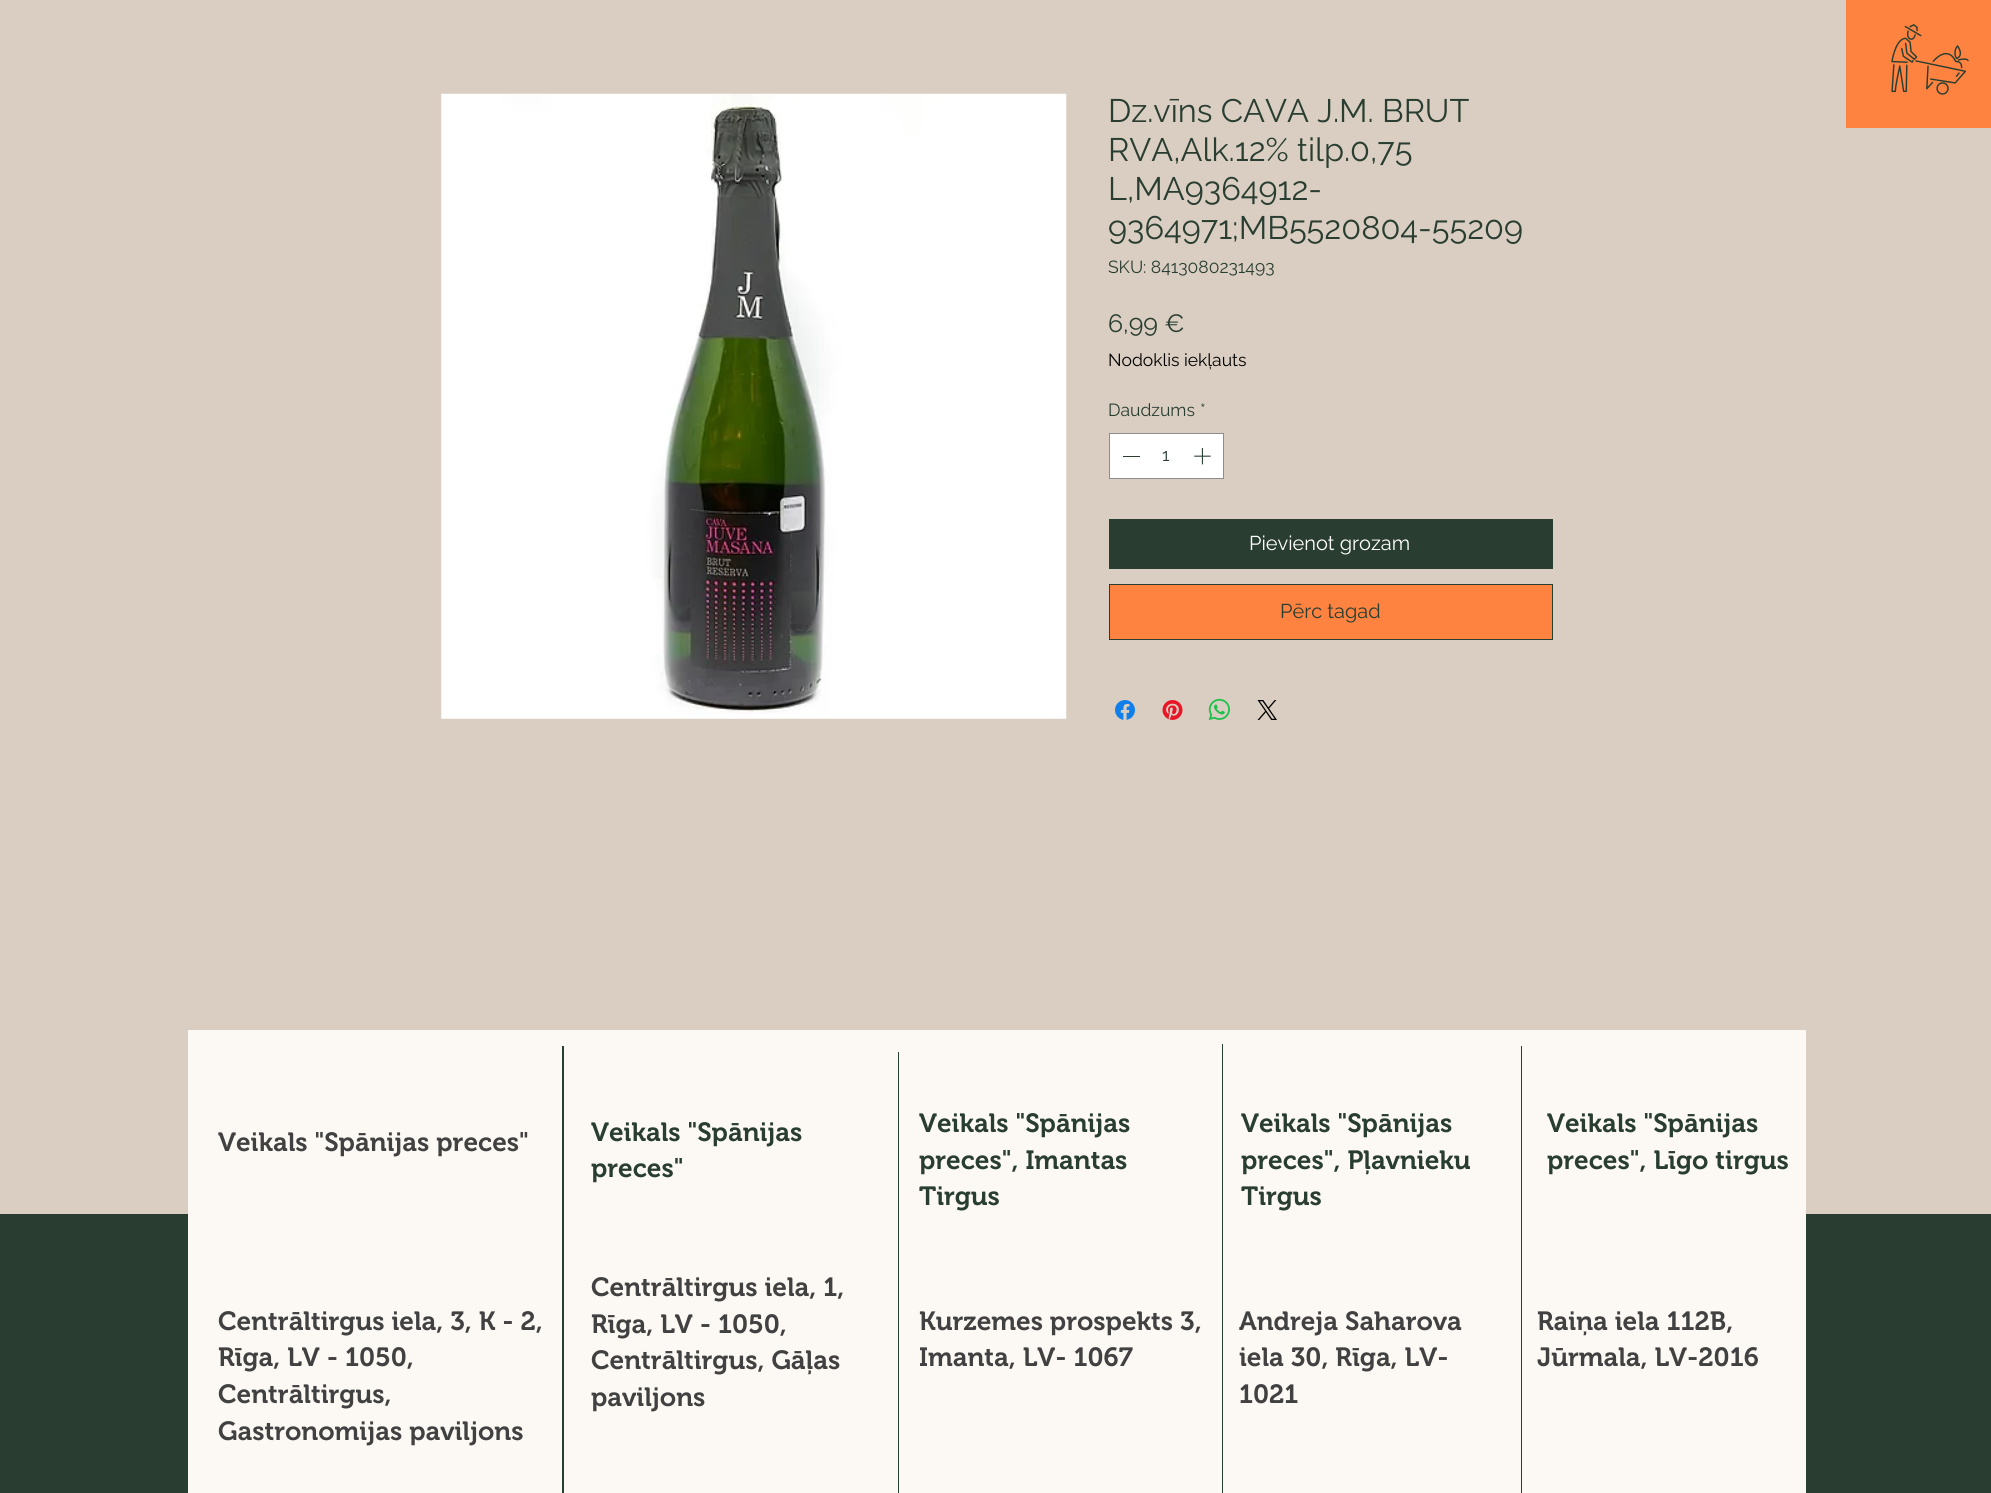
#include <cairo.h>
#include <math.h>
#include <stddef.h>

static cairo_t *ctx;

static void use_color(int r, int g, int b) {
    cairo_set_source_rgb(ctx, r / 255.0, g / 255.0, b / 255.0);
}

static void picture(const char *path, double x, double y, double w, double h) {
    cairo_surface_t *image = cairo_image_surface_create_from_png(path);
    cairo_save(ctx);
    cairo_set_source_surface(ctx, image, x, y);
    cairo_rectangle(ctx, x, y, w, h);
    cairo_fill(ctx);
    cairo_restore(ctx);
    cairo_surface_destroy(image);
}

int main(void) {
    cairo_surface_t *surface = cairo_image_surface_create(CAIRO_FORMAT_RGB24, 1991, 1493);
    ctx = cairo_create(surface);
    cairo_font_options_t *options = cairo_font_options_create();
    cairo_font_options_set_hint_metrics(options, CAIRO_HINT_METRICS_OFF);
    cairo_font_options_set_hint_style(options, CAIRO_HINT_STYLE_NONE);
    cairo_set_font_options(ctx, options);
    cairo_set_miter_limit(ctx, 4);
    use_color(218, 206, 194);
    cairo_paint(ctx);
    use_color(254, 131, 64);
    cairo_rectangle(ctx, 1846, 0, 145, 128);
    cairo_fill(ctx);
    picture("img1.png", 1891, 24, 78, 71);
    picture("img2.png", 441, 93, 626, 626);
    cairo_select_font_face(ctx, "Raleway", CAIRO_FONT_SLANT_NORMAL, CAIRO_FONT_WEIGHT_NORMAL);
    cairo_set_font_size(ctx, 32.5);
    use_color(41, 62, 49);
    cairo_move_to(ctx, 1108, 122);
    cairo_show_text(ctx, "Dz.vīns CAVA J.M. BRUT");
    cairo_move_to(ctx, 1108, 161);
    cairo_show_text(ctx, "RVA,Alk.12% tilp.0,75");
    cairo_move_to(ctx, 1108, 200);
    cairo_show_text(ctx, "L,MA9364912-");
    cairo_move_to(ctx, 1108, 239);
    cairo_show_text(ctx, "9364971;MB5520804-55209");
    cairo_set_font_size(ctx, 17.5);
    cairo_move_to(ctx, 1108, 273);
    cairo_show_text(ctx, "SKU: 8413080231493");
    cairo_set_font_size(ctx, 25);
    cairo_move_to(ctx, 1108, 332);
    cairo_show_text(ctx, "6,99 €");
    cairo_set_font_size(ctx, 17.5);
    use_color(0, 0, 0);
    cairo_move_to(ctx, 1108, 366);
    cairo_show_text(ctx, "Nodoklis iekļauts");
    use_color(41, 62, 49);
    cairo_move_to(ctx, 1108, 416);
    cairo_show_text(ctx, "Daudzums");
    cairo_move_to(ctx, 1200, 416);
    cairo_show_text(ctx, "*");
    use_color(255, 255, 255);
    cairo_rectangle(ctx, 1109.5, 433.5, 114, 45);
    cairo_fill_preserve(ctx);
    use_color(141, 141, 141);
    cairo_set_line_width(ctx, 1);
    cairo_stroke(ctx);
    use_color(41, 62, 49);
    cairo_rectangle(ctx, 1123, 456, 17, 1);
    cairo_fill(ctx);
    cairo_move_to(ctx, 1162, 461);
    cairo_show_text(ctx, "1");
    picture("img3.png", 1194, 447, 17, 18);
    cairo_rectangle(ctx, 1109, 519, 444, 50);
    cairo_fill(ctx);
    cairo_set_font_size(ctx, 20);
    use_color(255, 255, 255);
    cairo_move_to(ctx, 1249, 550);
    cairo_show_text(ctx, "Pievienot grozam");
    use_color(254, 131, 64);
    cairo_rectangle(ctx, 1109.5, 584.5, 443, 55);
    cairo_fill_preserve(ctx);
    use_color(41, 62, 49);
    cairo_stroke(ctx);
    cairo_move_to(ctx, 1280, 618);
    cairo_show_text(ctx, "Pērc tagad");
    picture("img4.png", 1115, 700, 20, 20);
    picture("img5.png", 1162, 700, 21, 20);
    picture("img6.png", 1208, 698, 22, 22);
    picture("img7.png", 1257, 700, 20, 20);
    cairo_rectangle(ctx, 0, 1214, 1991, 279);
    cairo_fill(ctx);
    use_color(252, 249, 244);
    cairo_rectangle(ctx, 188, 1030, 1618, 463);
    cairo_fill(ctx);
    cairo_select_font_face(ctx, "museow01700 SemiBold", CAIRO_FONT_SLANT_NORMAL, CAIRO_FONT_WEIGHT_NORMAL);
    cairo_set_font_size(ctx, 26.25);
    use_color(65, 65, 65);
    cairo_move_to(ctx, 218, 1151);
    cairo_show_text(ctx, "Veikals \"Spānijas preces\"");
    use_color(41, 62, 49);
    cairo_rectangle(ctx, 562, 1046, 2, 447);
    cairo_fill(ctx);
    cairo_move_to(ctx, 591, 1141);
    cairo_show_text(ctx, "Veikals \"Spānijas");
    cairo_move_to(ctx, 591, 1177);
    cairo_show_text(ctx, "preces\"");
    cairo_rectangle(ctx, 898, 1052, 1, 441);
    cairo_fill(ctx);
    cairo_move_to(ctx, 919, 1132);
    cairo_show_text(ctx, "Veikals \"Spānijas");
    cairo_move_to(ctx, 919, 1169);
    cairo_show_text(ctx, "preces\", Imantas");
    cairo_move_to(ctx, 919, 1205);
    cairo_show_text(ctx, "Tirgus");
    cairo_rectangle(ctx, 1222, 1044, 1, 449);
    cairo_fill(ctx);
    cairo_move_to(ctx, 1241, 1132);
    cairo_show_text(ctx, "Veikals \"Spānijas");
    cairo_move_to(ctx, 1241, 1169);
    cairo_show_text(ctx, "preces\", Pļavnieku");
    cairo_move_to(ctx, 1241, 1205);
    cairo_show_text(ctx, "Tirgus");
    cairo_rectangle(ctx, 1521, 1046, 1, 447);
    cairo_fill(ctx);
    cairo_move_to(ctx, 1547, 1132);
    cairo_show_text(ctx, "Veikals \"Spānijas");
    cairo_move_to(ctx, 1547, 1169);
    cairo_show_text(ctx, "preces\", Līgo tirgus");
    use_color(65, 65, 65);
    cairo_move_to(ctx, 218, 1330);
    cairo_show_text(ctx, "Centrāltirgus iela, 3, K - 2,");
    cairo_move_to(ctx, 218, 1366);
    cairo_show_text(ctx, "Rīga, LV - 1050,");
    cairo_move_to(ctx, 218, 1403);
    cairo_show_text(ctx, "Centrāltirgus,");
    cairo_move_to(ctx, 218, 1440);
    cairo_show_text(ctx, "Gastronomijas paviljons");
    cairo_move_to(ctx, 591, 1296);
    cairo_show_text(ctx, "Centrāltirgus iela, 1,");
    cairo_move_to(ctx, 591, 1333);
    cairo_show_text(ctx, "Rīga, LV - 1050,");
    cairo_move_to(ctx, 591, 1369);
    cairo_show_text(ctx, "Centrāltirgus, Gāļas");
    cairo_move_to(ctx, 591, 1406);
    cairo_show_text(ctx, "paviljons");
    cairo_move_to(ctx, 919, 1330);
    cairo_show_text(ctx, "Kurzemes prospekts 3,");
    cairo_move_to(ctx, 919, 1366);
    cairo_show_text(ctx, "Imanta, LV- 1067");
    cairo_move_to(ctx, 1239, 1330);
    cairo_show_text(ctx, "Andreja Saharova");
    cairo_move_to(ctx, 1239, 1366);
    cairo_show_text(ctx, "iela 30, Rīga, LV-");
    cairo_move_to(ctx, 1239, 1403);
    cairo_show_text(ctx, "1021");
    cairo_move_to(ctx, 1537, 1330);
    cairo_show_text(ctx, "Raiņa iela 112B,");
    cairo_move_to(ctx, 1537, 1366);
    cairo_show_text(ctx, "Jūrmala, LV-2016");
    cairo_surface_write_to_png(surface, "result.png");
    cairo_font_options_destroy(options);
    cairo_destroy(ctx);
    cairo_surface_destroy(surface);
    return 0;
}
